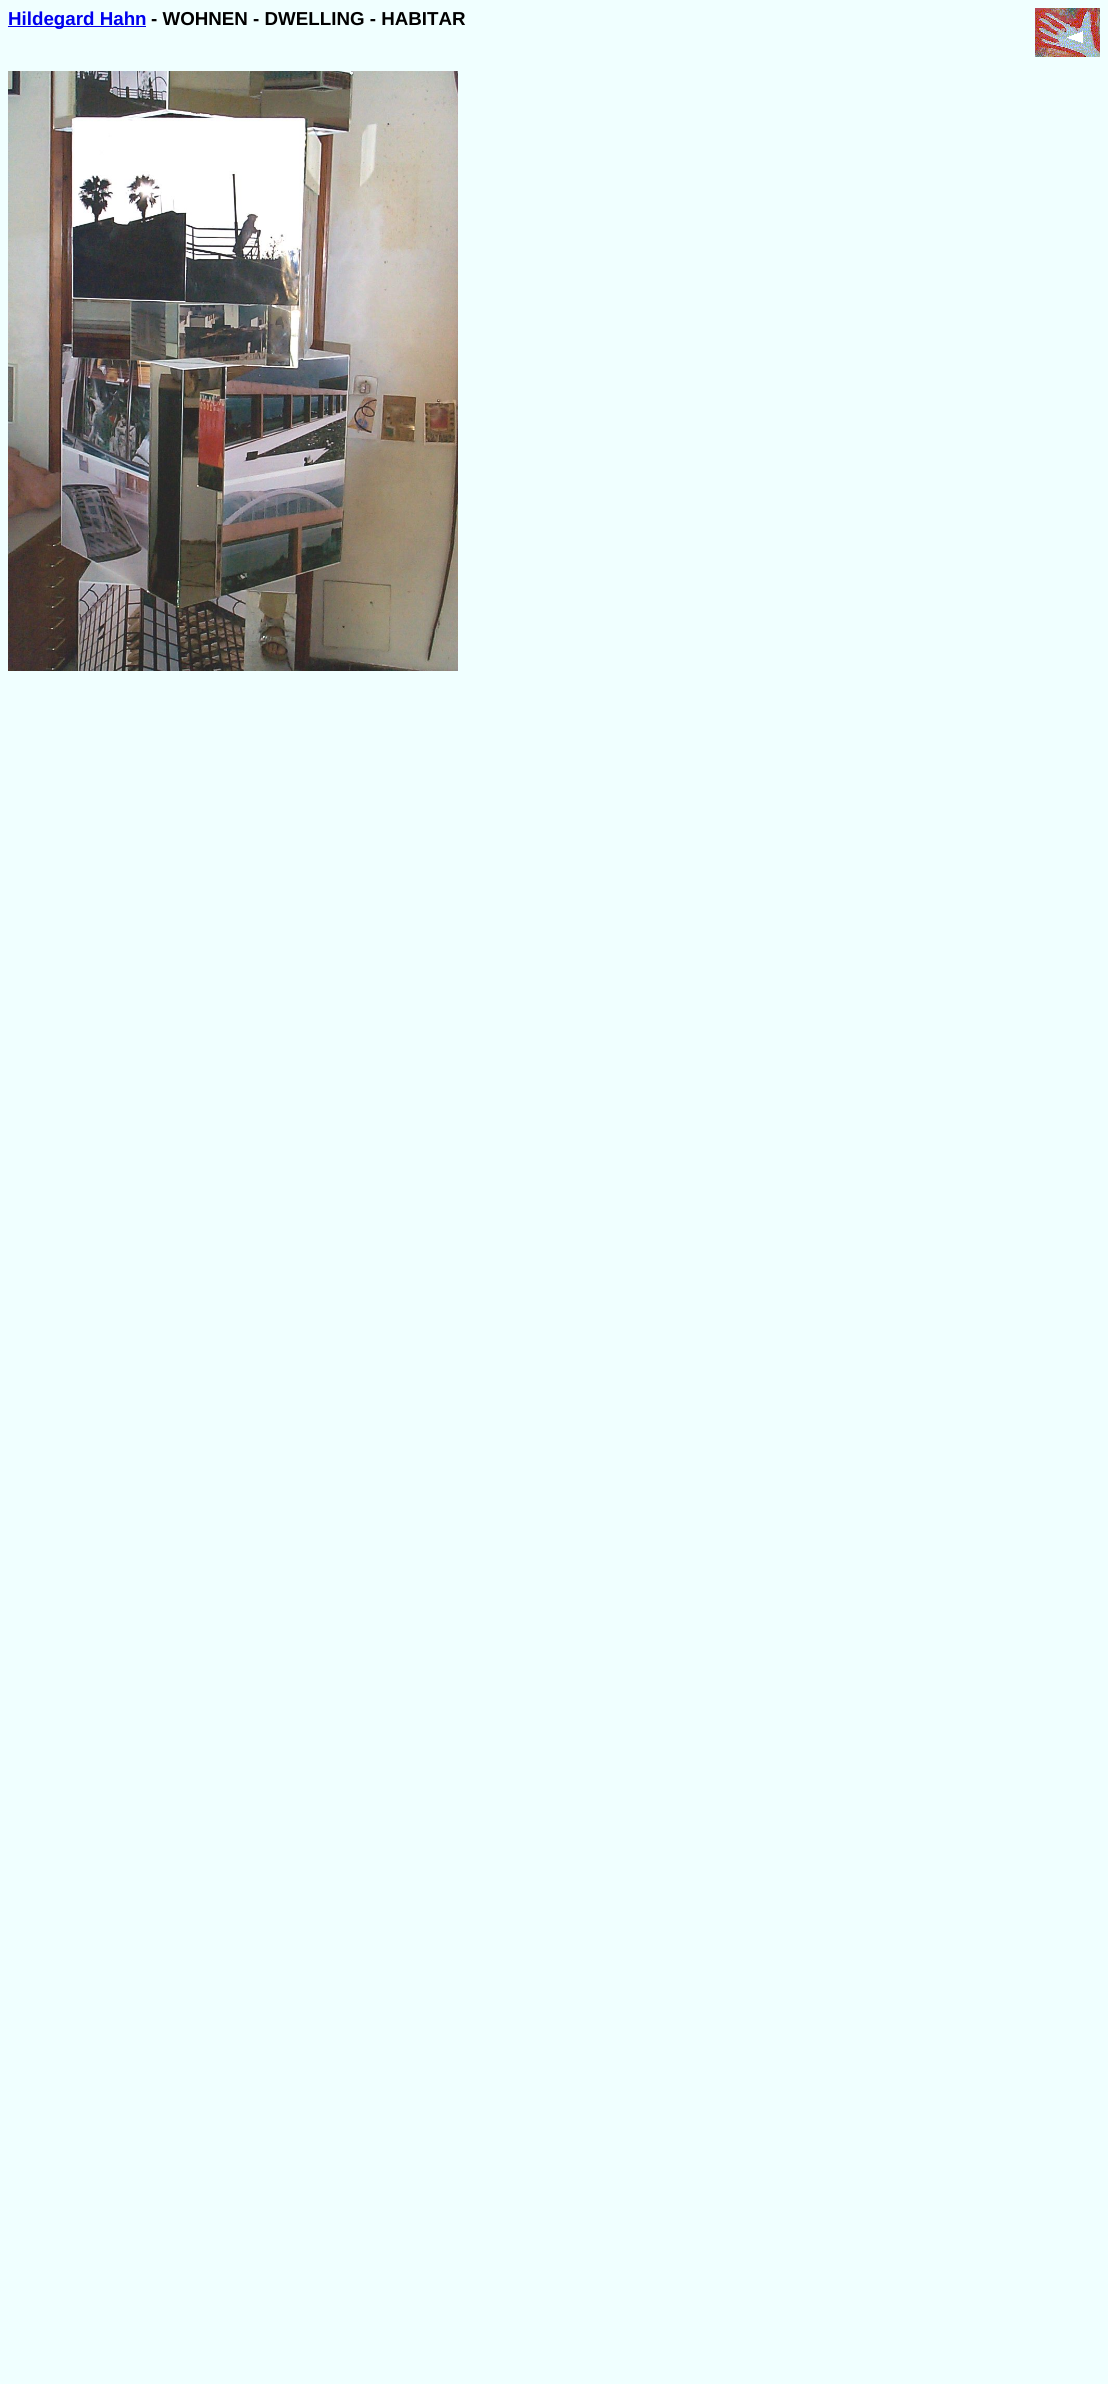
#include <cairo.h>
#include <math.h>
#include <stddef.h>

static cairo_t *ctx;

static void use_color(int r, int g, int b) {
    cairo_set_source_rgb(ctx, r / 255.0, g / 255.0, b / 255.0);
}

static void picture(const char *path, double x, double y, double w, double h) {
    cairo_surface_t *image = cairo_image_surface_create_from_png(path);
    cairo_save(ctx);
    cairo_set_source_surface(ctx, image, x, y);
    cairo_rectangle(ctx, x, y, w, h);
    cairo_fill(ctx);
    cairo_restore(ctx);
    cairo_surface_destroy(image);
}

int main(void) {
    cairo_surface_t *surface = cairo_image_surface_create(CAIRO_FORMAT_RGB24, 1108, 2384);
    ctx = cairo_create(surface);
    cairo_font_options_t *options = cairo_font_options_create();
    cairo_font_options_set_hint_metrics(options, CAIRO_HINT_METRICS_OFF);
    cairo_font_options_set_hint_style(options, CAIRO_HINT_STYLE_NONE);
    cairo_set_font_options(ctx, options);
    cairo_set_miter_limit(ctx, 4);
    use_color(240, 255, 255);
    cairo_paint(ctx);
    use_color(0, 0, 238);
    cairo_rectangle(ctx, 8, 26, 138, 1);
    cairo_fill(ctx);
    cairo_select_font_face(ctx, "Liberation Sans", CAIRO_FONT_SLANT_NORMAL, CAIRO_FONT_WEIGHT_BOLD);
    cairo_set_font_size(ctx, 18.75);
    cairo_move_to(ctx, 8, 25);
    cairo_show_text(ctx, "Hildegard Hahn");
    use_color(0, 0, 0);
    cairo_move_to(ctx, 151, 25);
    cairo_show_text(ctx, "- WOHNEN - DWELLING - HABITAR");
    picture("img1.png", 1035, 8, 65, 49);
    picture("img2.png", 8, 71, 450, 600);
    cairo_surface_write_to_png(surface, "result.png");
    cairo_font_options_destroy(options);
    cairo_destroy(ctx);
    cairo_surface_destroy(surface);
    return 0;
}
